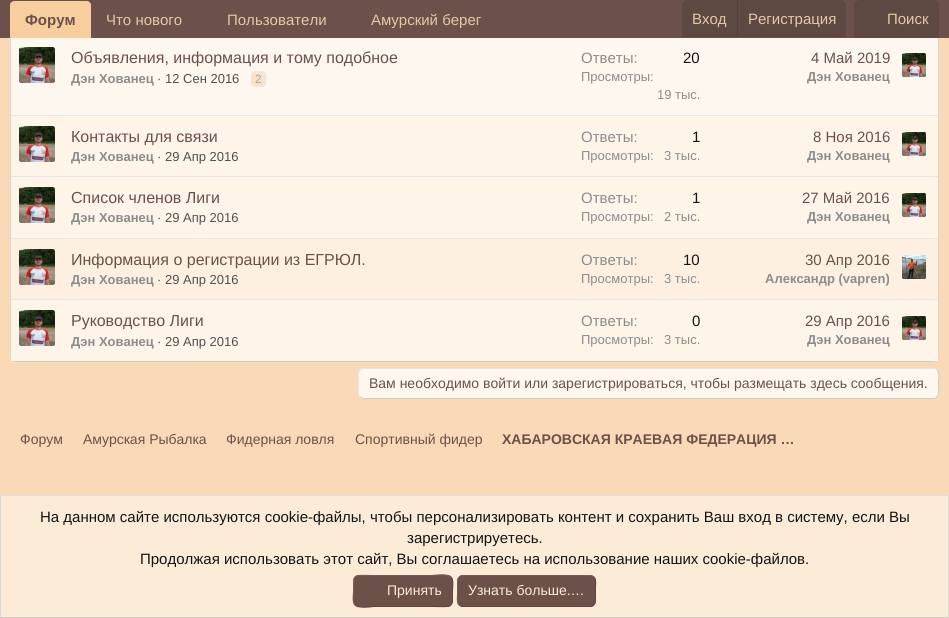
#include <cairo.h>
#include <math.h>
#include <stddef.h>

static cairo_t *ctx;

static void use_color(int r, int g, int b) {
    cairo_set_source_rgb(ctx, r / 255.0, g / 255.0, b / 255.0);
}

static void round_rect(double x, double y, double w, double h, double r) {
    cairo_new_sub_path(ctx);
    cairo_arc(ctx, x + w - r, y + h - r, r, 0, M_PI / 2);
    cairo_arc(ctx, x + r, y + h - r, r, M_PI / 2, M_PI);
    cairo_arc(ctx, x + r, y + r, r, M_PI, 1.5 * M_PI);
    cairo_arc(ctx, x + w - r, y + r, r, 1.5 * M_PI, 2 * M_PI);
    cairo_close_path(ctx);
}

static void picture(const char *path, double x, double y, double w, double h) {
    cairo_surface_t *image = cairo_image_surface_create_from_png(path);
    cairo_save(ctx);
    cairo_set_source_surface(ctx, image, x, y);
    cairo_rectangle(ctx, x, y, w, h);
    cairo_fill(ctx);
    cairo_restore(ctx);
    cairo_surface_destroy(image);
}

int main(void) {
    cairo_surface_t *surface = cairo_image_surface_create(CAIRO_FORMAT_RGB24, 949, 618);
    ctx = cairo_create(surface);
    cairo_font_options_t *options = cairo_font_options_create();
    cairo_font_options_set_hint_metrics(options, CAIRO_HINT_METRICS_OFF);
    cairo_font_options_set_hint_style(options, CAIRO_HINT_STYLE_NONE);
    cairo_set_font_options(ctx, options);
    cairo_set_miter_limit(ctx, 4);
    use_color(250, 218, 182);
    cairo_paint(ctx);
    use_color(254, 247, 239);
    round_rect(10, 2, 929, 360, 6);
    cairo_fill(ctx);
    cairo_new_path(ctx);
    cairo_move_to(ctx, 937, 4);
    cairo_curve_to(ctx, 938, 5, 938.5, 6.5, 938.5, 8);
    cairo_line_to(ctx, 938.5, 356);
    cairo_curve_to(ctx, 938.5, 357.5, 938, 359, 937, 360);
    use_color(216, 216, 216);
    cairo_set_line_width(ctx, 1);
    cairo_stroke(ctx);
    cairo_new_path(ctx);
    cairo_move_to(ctx, 937, 360);
    cairo_curve_to(ctx, 936, 361, 934.5, 361.5, 933, 361.5);
    cairo_line_to(ctx, 16, 361.5);
    cairo_curve_to(ctx, 14.5, 361.5, 13, 361, 12, 360);
    use_color(203, 203, 203);
    cairo_stroke(ctx);
    cairo_new_path(ctx);
    cairo_move_to(ctx, 12, 360);
    cairo_curve_to(ctx, 11, 359, 10.5, 357.5, 10.5, 356);
    cairo_line_to(ctx, 10.5, 8);
    cairo_curve_to(ctx, 10.5, 6.5, 11, 5, 12, 4);
    use_color(216, 216, 216);
    cairo_stroke(ctx);
    use_color(107, 81, 74);
    cairo_rectangle(ctx, 0, 0, 949, 38);
    cairo_fill(ctx);
    use_color(248, 206, 158);
    cairo_new_path(ctx);
    cairo_move_to(ctx, 14, 1);
    cairo_line_to(ctx, 87, 1);
    cairo_curve_to(ctx, 89, 1, 91, 3, 91, 5);
    cairo_line_to(ctx, 91, 38);
    cairo_line_to(ctx, 10, 38);
    cairo_line_to(ctx, 10, 5);
    cairo_curve_to(ctx, 10, 3, 12, 1, 14, 1);
    cairo_close_path(ctx);
    cairo_fill(ctx);
    cairo_select_font_face(ctx, "Liberation Sans", CAIRO_FONT_SLANT_NORMAL, CAIRO_FONT_WEIGHT_BOLD);
    cairo_set_font_size(ctx, 15);
    use_color(107, 81, 74);
    cairo_move_to(ctx, 25, 25);
    cairo_show_text(ctx, "Форум");
    cairo_select_font_face(ctx, "Liberation Sans", CAIRO_FONT_SLANT_NORMAL, CAIRO_FONT_WEIGHT_NORMAL);
    use_color(228, 200, 165);
    cairo_move_to(ctx, 106, 25);
    cairo_show_text(ctx, "Что нового");
    cairo_move_to(ctx, 227, 25);
    cairo_show_text(ctx, "Пользователи");
    cairo_move_to(ctx, 371, 25);
    cairo_show_text(ctx, "Амурский берег");
    use_color(94, 72, 66);
    cairo_new_path(ctx);
    cairo_move_to(ctx, 688, 0);
    cairo_line_to(ctx, 840, 0);
    cairo_curve_to(ctx, 843.5, 0, 846, 2.5, 846, 6);
    cairo_line_to(ctx, 846, 37);
    cairo_line_to(ctx, 682, 37);
    cairo_line_to(ctx, 682, 6);
    cairo_curve_to(ctx, 682, 2.5, 684.5, 0, 688, 0);
    cairo_close_path(ctx);
    cairo_fill(ctx);
    use_color(228, 200, 165);
    cairo_move_to(ctx, 692, 24);
    cairo_show_text(ctx, "Вход");
    use_color(83, 64, 59);
    cairo_rectangle(ctx, 737, 0, 1, 37);
    cairo_fill(ctx);
    use_color(228, 200, 165);
    cairo_move_to(ctx, 748, 24);
    cairo_show_text(ctx, "Регистрация");
    use_color(94, 72, 66);
    cairo_new_path(ctx);
    cairo_move_to(ctx, 860, 0);
    cairo_line_to(ctx, 933, 0);
    cairo_curve_to(ctx, 936.5, 0, 939, 2.5, 939, 6);
    cairo_line_to(ctx, 939, 38);
    cairo_line_to(ctx, 854, 38);
    cairo_line_to(ctx, 854, 6);
    cairo_curve_to(ctx, 854, 2.5, 856.5, 0, 860, 0);
    cairo_close_path(ctx);
    cairo_fill(ctx);
    use_color(228, 200, 165);
    cairo_move_to(ctx, 887, 24);
    cairo_show_text(ctx, "Поиск");
    picture("img1.png", 19, 47, 36, 36);
    cairo_set_font_size(ctx, 16);
    use_color(107, 81, 74);
    cairo_move_to(ctx, 71, 63);
    cairo_show_text(ctx, "Объявления, информация и тому подобное");
    cairo_select_font_face(ctx, "Liberation Sans", CAIRO_FONT_SLANT_NORMAL, CAIRO_FONT_WEIGHT_BOLD);
    cairo_set_font_size(ctx, 13);
    use_color(140, 140, 140);
    cairo_move_to(ctx, 71, 83);
    cairo_show_text(ctx, "Дэн Хованец");
    cairo_select_font_face(ctx, "Liberation Sans", CAIRO_FONT_SLANT_NORMAL, CAIRO_FONT_WEIGHT_NORMAL);
    use_color(80, 80, 80);
    cairo_move_to(ctx, 157, 83);
    cairo_show_text(ctx, "· 12 Сен 2016");
    use_color(251, 227, 199);
    round_rect(251.5, 71.5, 14, 15, 3.5);
    cairo_fill_preserve(ctx);
    use_color(235, 232, 228);
    cairo_stroke(ctx);
    cairo_set_font_size(ctx, 12);
    use_color(167, 164, 160);
    cairo_move_to(ctx, 255, 83);
    cairo_show_text(ctx, "2");
    cairo_set_font_size(ctx, 15);
    use_color(140, 140, 140);
    cairo_move_to(ctx, 581, 63);
    cairo_show_text(ctx, "Ответы:");
    use_color(20, 20, 20);
    cairo_move_to(ctx, 683, 63);
    cairo_show_text(ctx, "20");
    cairo_set_font_size(ctx, 13);
    use_color(140, 140, 140);
    cairo_move_to(ctx, 581, 81);
    cairo_show_text(ctx, "Просмотры:");
    cairo_move_to(ctx, 657, 99);
    cairo_show_text(ctx, "19 тыс.");
    cairo_set_font_size(ctx, 15);
    use_color(107, 81, 74);
    cairo_move_to(ctx, 811, 63);
    cairo_show_text(ctx, "4 Май 2019");
    cairo_select_font_face(ctx, "Liberation Sans", CAIRO_FONT_SLANT_NORMAL, CAIRO_FONT_WEIGHT_BOLD);
    cairo_set_font_size(ctx, 13);
    use_color(140, 140, 140);
    cairo_move_to(ctx, 807, 81);
    cairo_show_text(ctx, "Дэн Хованец");
    picture("img2.png", 902, 53, 24, 24);
    use_color(254, 244, 232);
    cairo_rectangle(ctx, 11, 116, 927, 60);
    cairo_fill(ctx);
    use_color(231, 231, 231);
    cairo_rectangle(ctx, 11, 115, 927, 1);
    cairo_fill(ctx);
    picture("img3.png", 19, 126, 36, 36);
    cairo_select_font_face(ctx, "Liberation Sans", CAIRO_FONT_SLANT_NORMAL, CAIRO_FONT_WEIGHT_NORMAL);
    cairo_set_font_size(ctx, 16);
    use_color(107, 81, 74);
    cairo_move_to(ctx, 71, 142);
    cairo_show_text(ctx, "Контакты для связи");
    cairo_select_font_face(ctx, "Liberation Sans", CAIRO_FONT_SLANT_NORMAL, CAIRO_FONT_WEIGHT_BOLD);
    cairo_set_font_size(ctx, 13);
    use_color(140, 140, 140);
    cairo_move_to(ctx, 71, 161);
    cairo_show_text(ctx, "Дэн Хованец");
    cairo_select_font_face(ctx, "Liberation Sans", CAIRO_FONT_SLANT_NORMAL, CAIRO_FONT_WEIGHT_NORMAL);
    use_color(80, 80, 80);
    cairo_move_to(ctx, 157, 161);
    cairo_show_text(ctx, "· 29 Апр 2016");
    cairo_set_font_size(ctx, 15);
    use_color(140, 140, 140);
    cairo_move_to(ctx, 581, 142);
    cairo_show_text(ctx, "Ответы:");
    use_color(20, 20, 20);
    cairo_move_to(ctx, 692, 142);
    cairo_show_text(ctx, "1");
    cairo_set_font_size(ctx, 13);
    use_color(140, 140, 140);
    cairo_move_to(ctx, 581, 160);
    cairo_show_text(ctx, "Просмотры:");
    cairo_move_to(ctx, 664, 160);
    cairo_show_text(ctx, "3 тыс.");
    cairo_set_font_size(ctx, 15);
    use_color(107, 81, 74);
    cairo_move_to(ctx, 813, 142);
    cairo_show_text(ctx, "8 Ноя 2016");
    cairo_select_font_face(ctx, "Liberation Sans", CAIRO_FONT_SLANT_NORMAL, CAIRO_FONT_WEIGHT_BOLD);
    cairo_set_font_size(ctx, 13);
    use_color(140, 140, 140);
    cairo_move_to(ctx, 807, 160);
    cairo_show_text(ctx, "Дэн Хованец");
    use_color(254, 247, 239);
    round_rect(902, 132, 24, 24, 1);
    cairo_fill(ctx);
    picture("img4.png", 902, 132, 24, 24);
    use_color(254, 244, 232);
    cairo_rectangle(ctx, 11, 177, 927, 61);
    cairo_fill(ctx);
    use_color(231, 231, 231);
    cairo_rectangle(ctx, 11, 176, 927, 1);
    cairo_fill(ctx);
    picture("img3.png", 19, 187, 36, 36);
    cairo_select_font_face(ctx, "Liberation Sans", CAIRO_FONT_SLANT_NORMAL, CAIRO_FONT_WEIGHT_NORMAL);
    cairo_set_font_size(ctx, 16);
    use_color(107, 81, 74);
    cairo_move_to(ctx, 71, 203);
    cairo_show_text(ctx, "Список членов Лиги");
    cairo_select_font_face(ctx, "Liberation Sans", CAIRO_FONT_SLANT_NORMAL, CAIRO_FONT_WEIGHT_BOLD);
    cairo_set_font_size(ctx, 13);
    use_color(140, 140, 140);
    cairo_move_to(ctx, 71, 222);
    cairo_show_text(ctx, "Дэн Хованец");
    cairo_select_font_face(ctx, "Liberation Sans", CAIRO_FONT_SLANT_NORMAL, CAIRO_FONT_WEIGHT_NORMAL);
    use_color(80, 80, 80);
    cairo_move_to(ctx, 157, 222);
    cairo_show_text(ctx, "· 29 Апр 2016");
    cairo_set_font_size(ctx, 15);
    use_color(140, 140, 140);
    cairo_move_to(ctx, 581, 203);
    cairo_show_text(ctx, "Ответы:");
    use_color(20, 20, 20);
    cairo_move_to(ctx, 692, 203);
    cairo_show_text(ctx, "1");
    cairo_set_font_size(ctx, 13);
    use_color(140, 140, 140);
    cairo_move_to(ctx, 581, 221);
    cairo_show_text(ctx, "Просмотры:");
    cairo_move_to(ctx, 664, 221);
    cairo_show_text(ctx, "2 тыс.");
    cairo_set_font_size(ctx, 15);
    use_color(107, 81, 74);
    cairo_move_to(ctx, 802, 203);
    cairo_show_text(ctx, "27 Май 2016");
    cairo_select_font_face(ctx, "Liberation Sans", CAIRO_FONT_SLANT_NORMAL, CAIRO_FONT_WEIGHT_BOLD);
    cairo_set_font_size(ctx, 13);
    use_color(140, 140, 140);
    cairo_move_to(ctx, 807, 221);
    cairo_show_text(ctx, "Дэн Хованец");
    use_color(254, 247, 239);
    round_rect(902, 193, 24, 24, 1);
    cairo_fill(ctx);
    picture("img4.png", 902, 193, 24, 24);
    use_color(253, 240, 225);
    cairo_rectangle(ctx, 11, 239, 927, 60);
    cairo_fill(ctx);
    use_color(231, 231, 231);
    cairo_rectangle(ctx, 11, 238, 927, 1);
    cairo_fill(ctx);
    picture("img5.png", 19, 249, 36, 36);
    cairo_select_font_face(ctx, "Liberation Sans", CAIRO_FONT_SLANT_NORMAL, CAIRO_FONT_WEIGHT_NORMAL);
    cairo_set_font_size(ctx, 16);
    use_color(107, 81, 74);
    cairo_move_to(ctx, 71, 265);
    cairo_show_text(ctx, "Информация о регистрации из ЕГРЮЛ.");
    cairo_select_font_face(ctx, "Liberation Sans", CAIRO_FONT_SLANT_NORMAL, CAIRO_FONT_WEIGHT_BOLD);
    cairo_set_font_size(ctx, 13);
    use_color(140, 140, 140);
    cairo_move_to(ctx, 71, 284);
    cairo_show_text(ctx, "Дэн Хованец");
    cairo_select_font_face(ctx, "Liberation Sans", CAIRO_FONT_SLANT_NORMAL, CAIRO_FONT_WEIGHT_NORMAL);
    use_color(80, 80, 80);
    cairo_move_to(ctx, 157, 284);
    cairo_show_text(ctx, "· 29 Апр 2016");
    cairo_set_font_size(ctx, 15);
    use_color(140, 140, 140);
    cairo_move_to(ctx, 581, 265);
    cairo_show_text(ctx, "Ответы:");
    use_color(20, 20, 20);
    cairo_move_to(ctx, 683, 265);
    cairo_show_text(ctx, "10");
    cairo_set_font_size(ctx, 13);
    use_color(140, 140, 140);
    cairo_move_to(ctx, 581, 283);
    cairo_show_text(ctx, "Просмотры:");
    cairo_move_to(ctx, 664, 283);
    cairo_show_text(ctx, "3 тыс.");
    cairo_set_font_size(ctx, 15);
    use_color(107, 81, 74);
    cairo_move_to(ctx, 805, 265);
    cairo_show_text(ctx, "30 Апр 2016");
    cairo_select_font_face(ctx, "Liberation Sans", CAIRO_FONT_SLANT_NORMAL, CAIRO_FONT_WEIGHT_BOLD);
    cairo_set_font_size(ctx, 13);
    use_color(140, 140, 140);
    cairo_move_to(ctx, 765, 283);
    cairo_show_text(ctx, "Александр (vapren)");
    use_color(254, 247, 239);
    round_rect(902, 255, 24, 24, 1);
    cairo_fill(ctx);
    picture("img6.png", 902, 255, 24, 24);
    use_color(254, 244, 232);
    cairo_rectangle(ctx, 11, 300, 927, 61);
    cairo_fill(ctx);
    use_color(231, 231, 231);
    cairo_rectangle(ctx, 11, 299, 927, 1);
    cairo_fill(ctx);
    picture("img3.png", 19, 310, 36, 36);
    cairo_select_font_face(ctx, "Liberation Sans", CAIRO_FONT_SLANT_NORMAL, CAIRO_FONT_WEIGHT_NORMAL);
    cairo_set_font_size(ctx, 16);
    use_color(107, 81, 74);
    cairo_move_to(ctx, 71, 326);
    cairo_show_text(ctx, "Руководство Лиги");
    cairo_select_font_face(ctx, "Liberation Sans", CAIRO_FONT_SLANT_NORMAL, CAIRO_FONT_WEIGHT_BOLD);
    cairo_set_font_size(ctx, 13);
    use_color(140, 140, 140);
    cairo_move_to(ctx, 71, 346);
    cairo_show_text(ctx, "Дэн Хованец");
    cairo_select_font_face(ctx, "Liberation Sans", CAIRO_FONT_SLANT_NORMAL, CAIRO_FONT_WEIGHT_NORMAL);
    use_color(80, 80, 80);
    cairo_move_to(ctx, 157, 346);
    cairo_show_text(ctx, "· 29 Апр 2016");
    cairo_set_font_size(ctx, 15);
    use_color(140, 140, 140);
    cairo_move_to(ctx, 581, 326);
    cairo_show_text(ctx, "Ответы:");
    use_color(20, 20, 20);
    cairo_move_to(ctx, 692, 326);
    cairo_show_text(ctx, "0");
    cairo_set_font_size(ctx, 13);
    use_color(140, 140, 140);
    cairo_move_to(ctx, 581, 344);
    cairo_show_text(ctx, "Просмотры:");
    cairo_move_to(ctx, 664, 344);
    cairo_show_text(ctx, "3 тыс.");
    cairo_set_font_size(ctx, 15);
    use_color(107, 81, 74);
    cairo_move_to(ctx, 805, 326);
    cairo_show_text(ctx, "29 Апр 2016");
    cairo_select_font_face(ctx, "Liberation Sans", CAIRO_FONT_SLANT_NORMAL, CAIRO_FONT_WEIGHT_BOLD);
    cairo_set_font_size(ctx, 13);
    use_color(140, 140, 140);
    cairo_move_to(ctx, 807, 344);
    cairo_show_text(ctx, "Дэн Хованец");
    use_color(254, 247, 239);
    round_rect(902, 316, 24, 24, 1);
    cairo_fill(ctx);
    picture("img4.png", 902, 316, 24, 24);
    round_rect(358, 368, 581, 31, 6);
    cairo_fill(ctx);
    cairo_new_path(ctx);
    cairo_move_to(ctx, 937, 370);
    cairo_curve_to(ctx, 940, 373, 938.5, 380, 938.5, 383.5);
    cairo_curve_to(ctx, 938.5, 388, 940.5, 398.5, 933, 398.5);
    cairo_line_to(ctx, 362.5, 398.5);
    cairo_line_to(ctx, 360, 397);
    use_color(203, 203, 203);
    cairo_stroke(ctx);
    cairo_new_path(ctx);
    cairo_move_to(ctx, 360, 397);
    cairo_curve_to(ctx, 357, 394, 358.5, 387, 358.5, 383.5);
    cairo_curve_to(ctx, 358.5, 379, 356.5, 368.5, 364, 368.5);
    cairo_line_to(ctx, 934.5, 368.5);
    cairo_line_to(ctx, 937, 370);
    use_color(229, 229, 229);
    cairo_stroke(ctx);
    cairo_select_font_face(ctx, "Liberation Sans", CAIRO_FONT_SLANT_NORMAL, CAIRO_FONT_WEIGHT_NORMAL);
    cairo_set_font_size(ctx, 14);
    use_color(107, 81, 74);
    cairo_move_to(ctx, 369, 388);
    cairo_show_text(ctx, "Вам необходимо войти или зарегистрироваться, чтобы размещать здесь сообщения.");
    cairo_move_to(ctx, 20, 444);
    cairo_show_text(ctx, "Форум");
    cairo_move_to(ctx, 83, 444);
    cairo_show_text(ctx, "Амурская Рыбалка");
    cairo_move_to(ctx, 226, 444);
    cairo_show_text(ctx, "Фидерная ловля");
    cairo_move_to(ctx, 355, 444);
    cairo_show_text(ctx, "Спортивный фидер");
    cairo_select_font_face(ctx, "Liberation Sans", CAIRO_FONT_SLANT_NORMAL, CAIRO_FONT_WEIGHT_BOLD);
    cairo_move_to(ctx, 502, 444);
    cairo_show_text(ctx, "ХАБАРОВСКАЯ КРАЕВАЯ ФЕДЕРАЦИЯ …");
    use_color(252, 235, 215);
    cairo_rectangle(ctx, 1, 496, 947, 121);
    cairo_fill(ctx);
    use_color(223, 223, 223);
    cairo_rectangle(ctx, 0, 495, 949, 1);
    cairo_fill(ctx);
    use_color(216, 216, 216);
    cairo_rectangle(ctx, 948, 495, 1, 123);
    cairo_fill(ctx);
    use_color(203, 203, 203);
    cairo_rectangle(ctx, 0, 617, 949, 1);
    cairo_fill(ctx);
    use_color(216, 216, 216);
    cairo_rectangle(ctx, 0, 495, 1, 123);
    cairo_fill(ctx);
    cairo_select_font_face(ctx, "Liberation Sans", CAIRO_FONT_SLANT_NORMAL, CAIRO_FONT_WEIGHT_NORMAL);
    cairo_set_font_size(ctx, 15);
    use_color(20, 20, 20);
    cairo_move_to(ctx, 40, 522);
    cairo_show_text(ctx, "На данном сайте используются cookie-файлы, чтобы персонализировать контент и сохранить Ваш вход в систему, если Вы");
    cairo_move_to(ctx, 407, 543);
    cairo_show_text(ctx, "зарегистрируетесь.");
    cairo_move_to(ctx, 140, 564);
    cairo_show_text(ctx, "Продолжая использовать этот сайт, Вы соглашаетесь на использование наших cookie-файлов.");
    use_color(107, 81, 74);
    round_rect(353, 575, 100, 32, 6);
    cairo_fill(ctx);
    cairo_new_path(ctx);
    cairo_move_to(ctx, 451, 577);
    cairo_curve_to(ctx, 454, 580, 452.5, 587.5, 452.5, 591);
    cairo_curve_to(ctx, 452.5, 609.5, 452.5, 606.5, 432.5, 606.5);
    cairo_line_to(ctx, 373.5, 606.5);
    cairo_curve_to(ctx, 373, 606.5, 359, 609, 355, 605);
    use_color(92, 70, 64);
    cairo_stroke(ctx);
    cairo_new_path(ctx);
    cairo_move_to(ctx, 355, 605);
    cairo_curve_to(ctx, 352, 602, 353.5, 594.5, 353.5, 591);
    cairo_curve_to(ctx, 353.5, 572.5, 353.5, 575.5, 373.5, 575.5);
    cairo_line_to(ctx, 432.5, 575.5);
    cairo_curve_to(ctx, 433, 575.5, 447, 573, 451, 577);
    use_color(122, 92, 84);
    cairo_stroke(ctx);
    cairo_set_font_size(ctx, 14);
    use_color(252, 235, 215);
    cairo_move_to(ctx, 387, 595);
    cairo_show_text(ctx, "Принять");
    use_color(107, 81, 74);
    round_rect(457, 575, 139, 32, 6);
    cairo_fill(ctx);
    cairo_new_path(ctx);
    cairo_move_to(ctx, 594, 577);
    cairo_curve_to(ctx, 596.5, 580, 595.5, 584.5, 595.5, 587.5);
    cairo_line_to(ctx, 595.5, 597.5);
    cairo_curve_to(ctx, 595.5, 601.5, 595, 606.5, 590, 606.5);
    cairo_line_to(ctx, 462, 606.5);
    cairo_line_to(ctx, 459, 605);
    use_color(92, 70, 64);
    cairo_stroke(ctx);
    cairo_new_path(ctx);
    cairo_move_to(ctx, 459, 605);
    cairo_curve_to(ctx, 456.5, 602, 457.5, 597.5, 457.5, 594.5);
    cairo_line_to(ctx, 457.5, 584.5);
    cairo_curve_to(ctx, 457.5, 580.5, 458, 575.5, 463, 575.5);
    cairo_line_to(ctx, 591, 575.5);
    cairo_line_to(ctx, 594, 577);
    use_color(122, 92, 84);
    cairo_stroke(ctx);
    use_color(252, 235, 215);
    cairo_move_to(ctx, 468, 595);
    cairo_show_text(ctx, "Узнать больше.…");
    cairo_surface_write_to_png(surface, "result.png");
    cairo_font_options_destroy(options);
    cairo_destroy(ctx);
    cairo_surface_destroy(surface);
    return 0;
}
